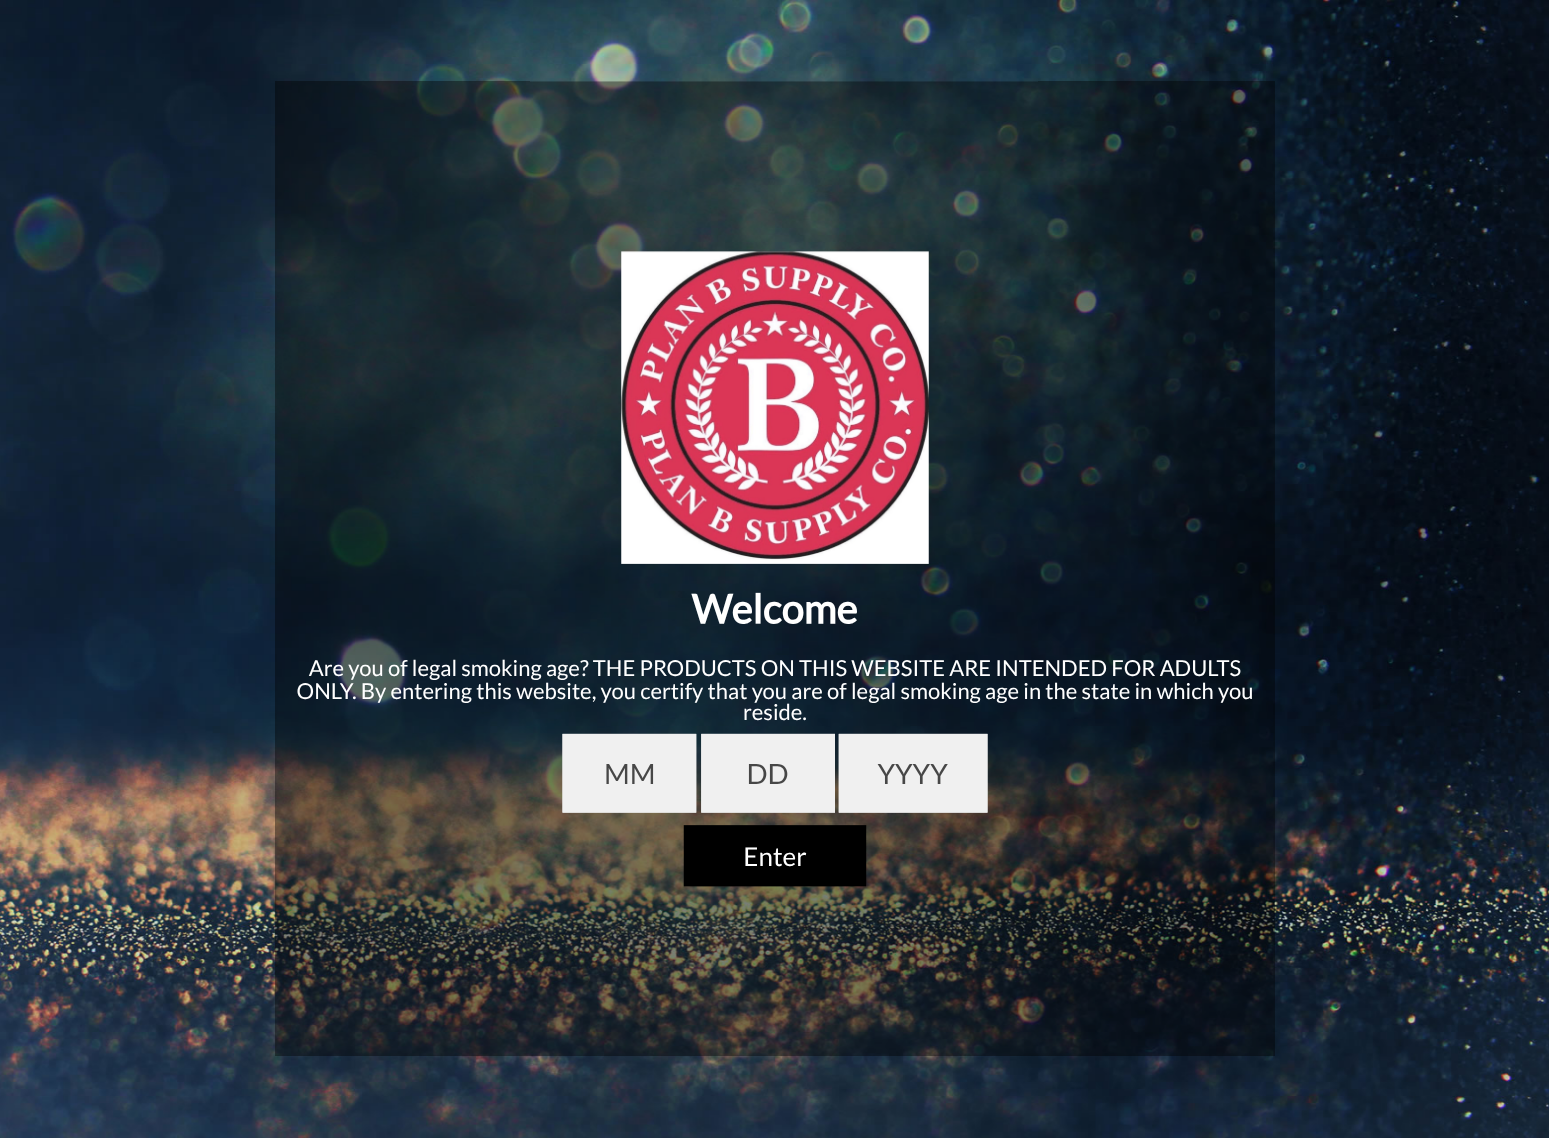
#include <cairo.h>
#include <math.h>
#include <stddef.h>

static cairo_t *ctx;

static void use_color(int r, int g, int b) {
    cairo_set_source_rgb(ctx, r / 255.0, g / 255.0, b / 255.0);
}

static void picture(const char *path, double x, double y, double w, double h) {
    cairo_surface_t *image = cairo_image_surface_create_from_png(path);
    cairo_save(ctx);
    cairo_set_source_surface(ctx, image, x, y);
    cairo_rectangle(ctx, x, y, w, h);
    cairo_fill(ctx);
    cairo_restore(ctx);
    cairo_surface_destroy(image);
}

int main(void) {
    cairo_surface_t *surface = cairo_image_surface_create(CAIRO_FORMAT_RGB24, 1549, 1138);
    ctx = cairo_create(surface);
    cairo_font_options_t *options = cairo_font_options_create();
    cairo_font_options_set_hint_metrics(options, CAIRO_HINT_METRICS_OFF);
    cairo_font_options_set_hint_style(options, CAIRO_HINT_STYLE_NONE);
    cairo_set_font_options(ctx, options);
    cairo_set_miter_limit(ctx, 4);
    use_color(255, 255, 255);
    cairo_paint(ctx);
    picture("img1.png", 0, 0, 1549, 1138);
    picture("img2.png", 275, 81, 1000, 975);
    cairo_surface_write_to_png(surface, "result.png");
    cairo_font_options_destroy(options);
    cairo_destroy(ctx);
    cairo_surface_destroy(surface);
    return 0;
}
